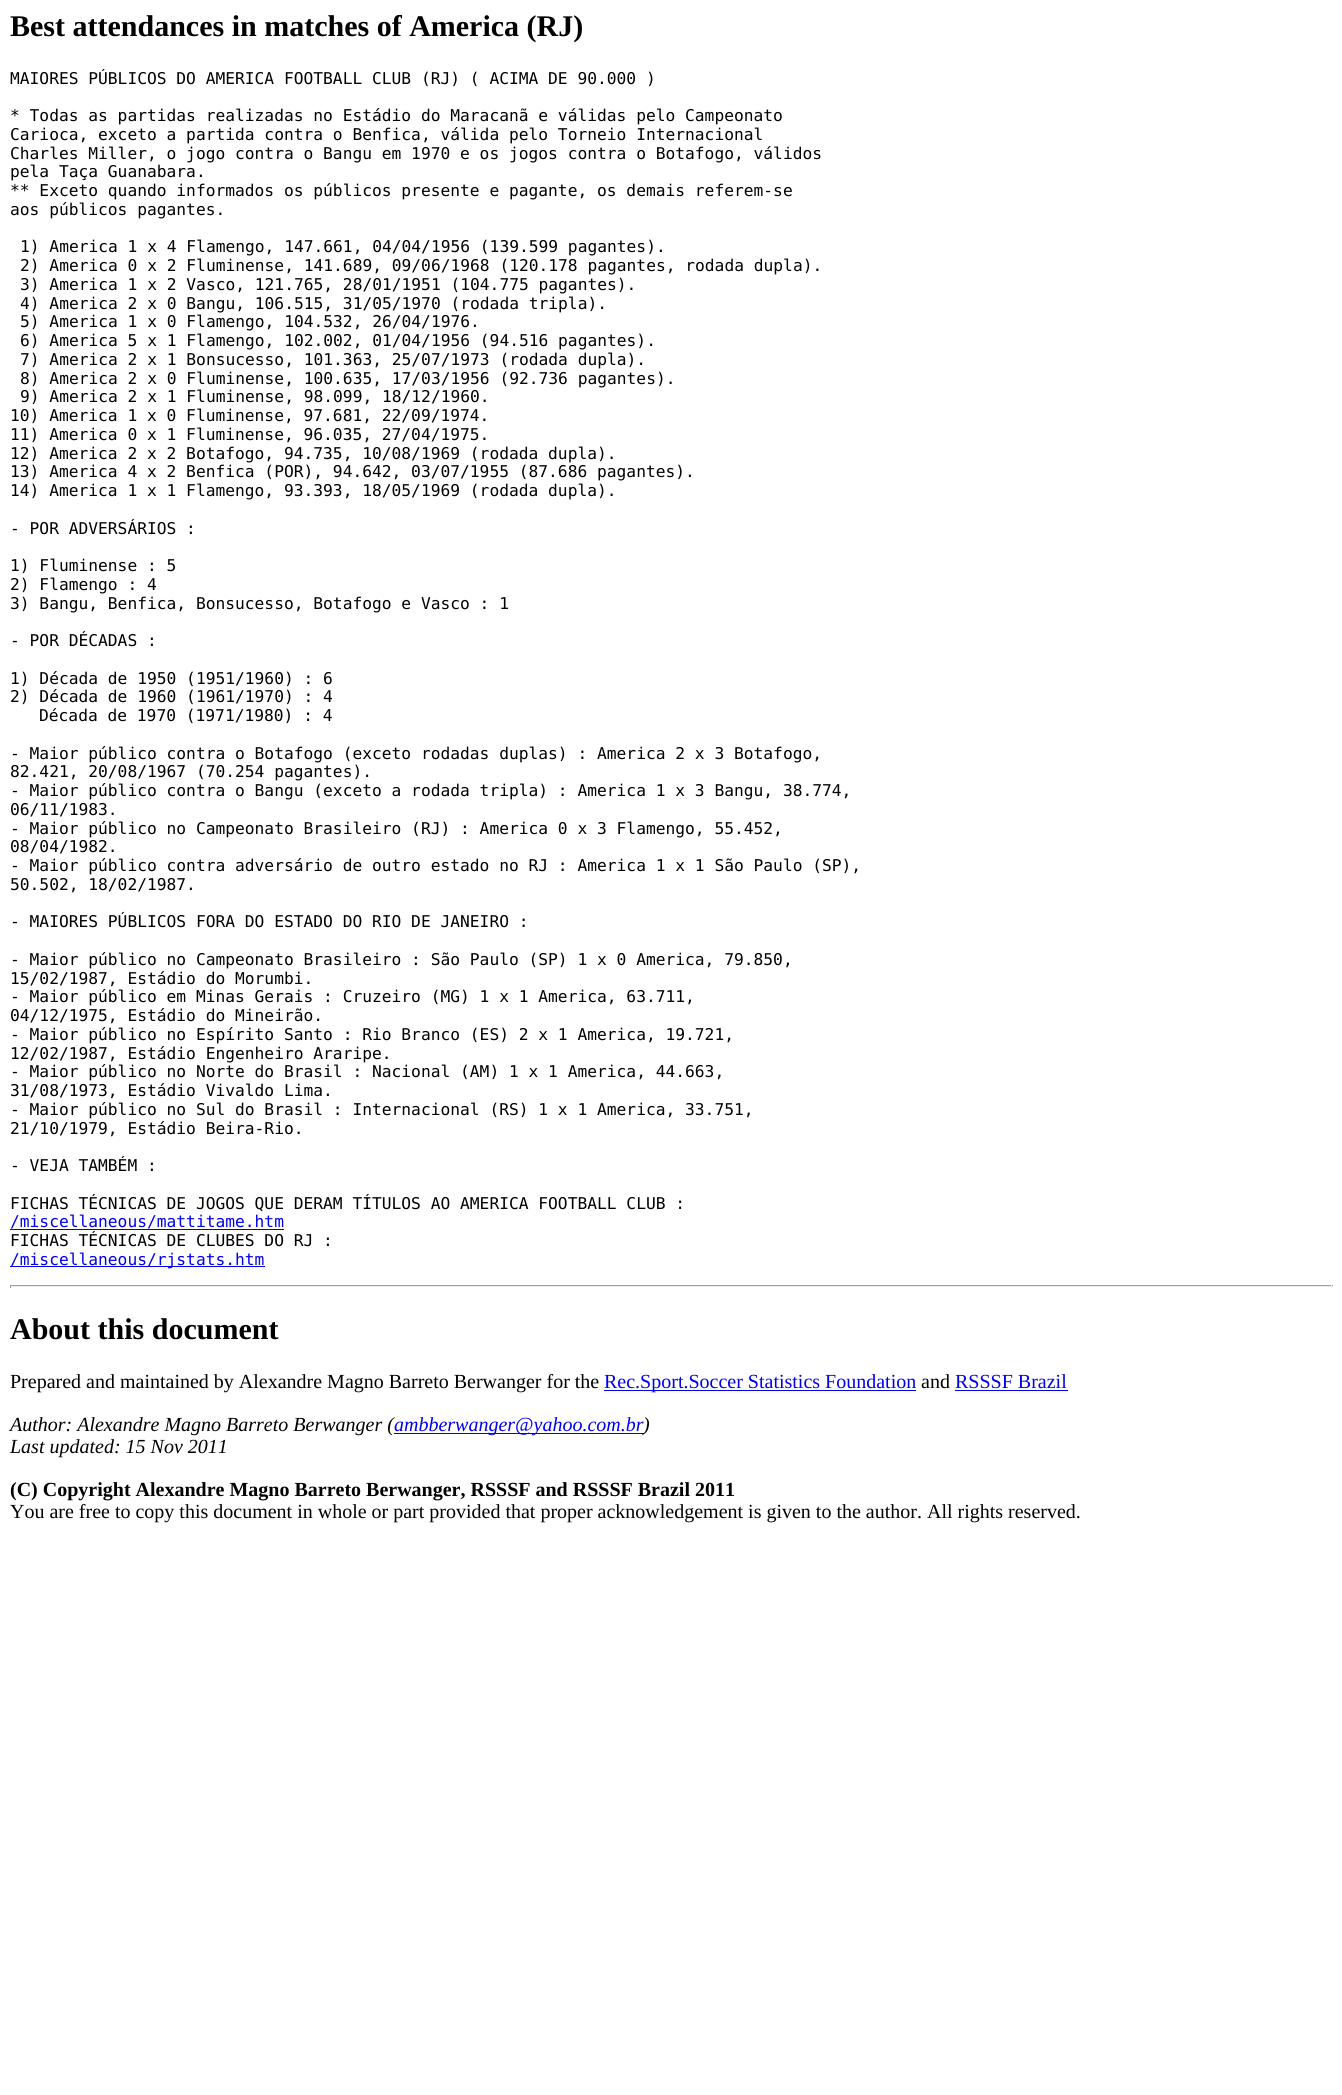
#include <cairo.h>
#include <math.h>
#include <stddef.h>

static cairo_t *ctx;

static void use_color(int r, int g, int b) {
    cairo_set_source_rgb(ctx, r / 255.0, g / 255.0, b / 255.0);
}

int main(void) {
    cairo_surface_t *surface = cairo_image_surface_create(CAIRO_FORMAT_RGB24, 1342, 2095);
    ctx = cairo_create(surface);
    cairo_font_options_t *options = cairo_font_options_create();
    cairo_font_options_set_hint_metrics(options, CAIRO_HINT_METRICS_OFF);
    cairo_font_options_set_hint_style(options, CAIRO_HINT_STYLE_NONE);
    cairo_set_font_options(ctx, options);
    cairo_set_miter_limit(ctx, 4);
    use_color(255, 255, 255);
    cairo_paint(ctx);
    cairo_select_font_face(ctx, "Liberation Serif", CAIRO_FONT_SLANT_NORMAL, CAIRO_FONT_WEIGHT_BOLD);
    cairo_set_font_size(ctx, 30);
    use_color(0, 0, 0);
    cairo_move_to(ctx, 10, 36);
    cairo_show_text(ctx, "Best attendances in matches of America (RJ)");
    cairo_select_font_face(ctx, "DejaVu Sans Mono", CAIRO_FONT_SLANT_NORMAL, CAIRO_FONT_WEIGHT_NORMAL);
    cairo_set_font_size(ctx, 16.25);
    cairo_move_to(ctx, 10, 84);
    cairo_show_text(ctx, "MAIORES PÚBLICOS DO AMERICA FOOTBALL CLUB (RJ) ( ACIMA DE 90.000 )");
    cairo_move_to(ctx, 10, 121);
    cairo_show_text(ctx, "* Todas as partidas realizadas no Estádio do Maracanã e válidas pelo Campeonato");
    cairo_move_to(ctx, 10, 140);
    cairo_show_text(ctx, "Carioca, exceto a partida contra o Benfica, válida pelo Torneio Internacional");
    cairo_move_to(ctx, 10, 159);
    cairo_show_text(ctx, "Charles Miller, o jogo contra o Bangu em 1970 e os jogos contra o Botafogo, válidos");
    cairo_move_to(ctx, 10, 177);
    cairo_show_text(ctx, "pela Taça Guanabara.");
    cairo_move_to(ctx, 10, 196);
    cairo_show_text(ctx, "** Exceto quando informados os públicos presente e pagante, os demais referem-se");
    cairo_move_to(ctx, 10, 215);
    cairo_show_text(ctx, "aos públicos pagantes.");
    cairo_move_to(ctx, 20, 252);
    cairo_show_text(ctx, "1) America 1 x 4 Flamengo, 147.661, 04/04/1956 (139.599 pagantes).");
    cairo_move_to(ctx, 20, 271);
    cairo_show_text(ctx, "2) America 0 x 2 Fluminense, 141.689, 09/06/1968 (120.178 pagantes, rodada dupla).");
    cairo_move_to(ctx, 20, 290);
    cairo_show_text(ctx, "3) America 1 x 2 Vasco, 121.765, 28/01/1951 (104.775 pagantes).");
    cairo_move_to(ctx, 20, 309);
    cairo_show_text(ctx, "4) America 2 x 0 Bangu, 106.515, 31/05/1970 (rodada tripla).");
    cairo_move_to(ctx, 20, 327);
    cairo_show_text(ctx, "5) America 1 x 0 Flamengo, 104.532, 26/04/1976.");
    cairo_move_to(ctx, 20, 346);
    cairo_show_text(ctx, "6) America 5 x 1 Flamengo, 102.002, 01/04/1956 (94.516 pagantes).");
    cairo_move_to(ctx, 20, 365);
    cairo_show_text(ctx, "7) America 2 x 1 Bonsucesso, 101.363, 25/07/1973 (rodada dupla).");
    cairo_move_to(ctx, 20, 384);
    cairo_show_text(ctx, "8) America 2 x 0 Fluminense, 100.635, 17/03/1956 (92.736 pagantes).");
    cairo_move_to(ctx, 20, 402);
    cairo_show_text(ctx, "9) America 2 x 1 Fluminense, 98.099, 18/12/1960.");
    cairo_move_to(ctx, 10, 421);
    cairo_show_text(ctx, "10) America 1 x 0 Fluminense, 97.681, 22/09/1974.");
    cairo_move_to(ctx, 10, 440);
    cairo_show_text(ctx, "11) America 0 x 1 Fluminense, 96.035, 27/04/1975.");
    cairo_move_to(ctx, 10, 459);
    cairo_show_text(ctx, "12) America 2 x 2 Botafogo, 94.735, 10/08/1969 (rodada dupla).");
    cairo_move_to(ctx, 10, 477);
    cairo_show_text(ctx, "13) America 4 x 2 Benfica (POR), 94.642, 03/07/1955 (87.686 pagantes).");
    cairo_move_to(ctx, 10, 496);
    cairo_show_text(ctx, "14) America 1 x 1 Flamengo, 93.393, 18/05/1969 (rodada dupla).");
    cairo_move_to(ctx, 10, 534);
    cairo_show_text(ctx, "- POR ADVERSÁRIOS :");
    cairo_move_to(ctx, 10, 571);
    cairo_show_text(ctx, "1) Fluminense : 5");
    cairo_move_to(ctx, 10, 590);
    cairo_show_text(ctx, "2) Flamengo : 4");
    cairo_move_to(ctx, 10, 609);
    cairo_show_text(ctx, "3) Bangu, Benfica, Bonsucesso, Botafogo e Vasco : 1");
    cairo_move_to(ctx, 10, 646);
    cairo_show_text(ctx, "- POR DÉCADAS :");
    cairo_move_to(ctx, 10, 684);
    cairo_show_text(ctx, "1) Década de 1950 (1951/1960) : 6");
    cairo_move_to(ctx, 10, 702);
    cairo_show_text(ctx, "2) Década de 1960 (1961/1970) : 4");
    cairo_move_to(ctx, 39, 721);
    cairo_show_text(ctx, "Década de 1970 (1971/1980) : 4");
    cairo_move_to(ctx, 10, 759);
    cairo_show_text(ctx, "- Maior público contra o Botafogo (exceto rodadas duplas) : America 2 x 3 Botafogo,");
    cairo_move_to(ctx, 10, 777);
    cairo_show_text(ctx, "82.421, 20/08/1967 (70.254 pagantes).");
    cairo_move_to(ctx, 10, 796);
    cairo_show_text(ctx, "- Maior público contra o Bangu (exceto a rodada tripla) : America 1 x 3 Bangu, 38.774,");
    cairo_move_to(ctx, 10, 815);
    cairo_show_text(ctx, "06/11/1983.");
    cairo_move_to(ctx, 10, 834);
    cairo_show_text(ctx, "- Maior público no Campeonato Brasileiro (RJ) : America 0 x 3 Flamengo, 55.452,");
    cairo_move_to(ctx, 10, 852);
    cairo_show_text(ctx, "08/04/1982.");
    cairo_move_to(ctx, 10, 871);
    cairo_show_text(ctx, "- Maior público contra adversário de outro estado no RJ : America 1 x 1 São Paulo (SP),");
    cairo_move_to(ctx, 10, 890);
    cairo_show_text(ctx, "50.502, 18/02/1987.");
    cairo_move_to(ctx, 10, 927);
    cairo_show_text(ctx, "- MAIORES PÚBLICOS FORA DO ESTADO DO RIO DE JANEIRO :");
    cairo_move_to(ctx, 10, 965);
    cairo_show_text(ctx, "- Maior público no Campeonato Brasileiro : São Paulo (SP) 1 x 0 America, 79.850,");
    cairo_move_to(ctx, 10, 984);
    cairo_show_text(ctx, "15/02/1987, Estádio do Morumbi.");
    cairo_move_to(ctx, 10, 1002);
    cairo_show_text(ctx, "- Maior público em Minas Gerais : Cruzeiro (MG) 1 x 1 America, 63.711,");
    cairo_move_to(ctx, 10, 1021);
    cairo_show_text(ctx, "04/12/1975, Estádio do Mineirão.");
    cairo_move_to(ctx, 10, 1040);
    cairo_show_text(ctx, "- Maior público no Espírito Santo : Rio Branco (ES) 2 x 1 America, 19.721,");
    cairo_move_to(ctx, 10, 1059);
    cairo_show_text(ctx, "12/02/1987, Estádio Engenheiro Araripe.");
    cairo_move_to(ctx, 10, 1077);
    cairo_show_text(ctx, "- Maior público no Norte do Brasil : Nacional (AM) 1 x 1 America, 44.663,");
    cairo_move_to(ctx, 10, 1096);
    cairo_show_text(ctx, "31/08/1973, Estádio Vivaldo Lima.");
    cairo_move_to(ctx, 10, 1115);
    cairo_show_text(ctx, "- Maior público no Sul do Brasil : Internacional (RS) 1 x 1 America, 33.751,");
    cairo_move_to(ctx, 10, 1134);
    cairo_show_text(ctx, "21/10/1979, Estádio Beira-Rio.");
    cairo_move_to(ctx, 10, 1171);
    cairo_show_text(ctx, "- VEJA TAMBÉM :");
    cairo_move_to(ctx, 10, 1209);
    cairo_show_text(ctx, "FICHAS TÉCNICAS DE JOGOS QUE DERAM TÍTULOS AO AMERICA FOOTBALL CLUB :");
    use_color(0, 0, 238);
    cairo_move_to(ctx, 10, 1227);
    cairo_show_text(ctx, "/miscellaneous/mattitame.htm");
    cairo_rectangle(ctx, 10, 1229, 274, 1);
    cairo_fill(ctx);
    use_color(0, 0, 0);
    cairo_move_to(ctx, 10, 1246);
    cairo_show_text(ctx, "FICHAS TÉCNICAS DE CLUBES DO RJ :");
    use_color(0, 0, 238);
    cairo_rectangle(ctx, 10, 1266, 255, 1);
    cairo_fill(ctx);
    cairo_move_to(ctx, 10, 1265);
    cairo_show_text(ctx, "/miscellaneous/rjstats.htm");
    use_color(159, 159, 159);
    cairo_rectangle(ctx, 10, 1285, 1323, 1);
    cairo_fill(ctx);
    use_color(238, 238, 238);
    cairo_rectangle(ctx, 1331, 1285, 1, 3);
    cairo_fill(ctx);
    cairo_rectangle(ctx, 10, 1286, 1323, 1);
    cairo_fill(ctx);
    use_color(159, 159, 159);
    cairo_rectangle(ctx, 10, 1285, 1, 3);
    cairo_fill(ctx);
    cairo_select_font_face(ctx, "Liberation Serif", CAIRO_FONT_SLANT_NORMAL, CAIRO_FONT_WEIGHT_BOLD);
    cairo_set_font_size(ctx, 30);
    use_color(0, 0, 0);
    cairo_move_to(ctx, 10, 1339);
    cairo_show_text(ctx, "About this document");
    cairo_select_font_face(ctx, "Liberation Serif", CAIRO_FONT_SLANT_NORMAL, CAIRO_FONT_WEIGHT_NORMAL);
    cairo_set_font_size(ctx, 20);
    cairo_move_to(ctx, 10, 1388);
    cairo_show_text(ctx, "Prepared and maintained by Alexandre Magno Barreto Berwanger for the");
    use_color(0, 0, 238);
    cairo_rectangle(ctx, 604, 1390, 312, 1);
    cairo_fill(ctx);
    cairo_move_to(ctx, 604, 1388);
    cairo_show_text(ctx, "Rec.Sport.Soccer Statistics Foundation");
    use_color(0, 0, 0);
    cairo_move_to(ctx, 921, 1388);
    cairo_show_text(ctx, "and");
    use_color(0, 0, 238);
    cairo_move_to(ctx, 955, 1388);
    cairo_show_text(ctx, "RSSSF Brazil");
    cairo_rectangle(ctx, 955, 1390, 113, 1);
    cairo_fill(ctx);
    cairo_select_font_face(ctx, "Liberation Serif", CAIRO_FONT_SLANT_ITALIC, CAIRO_FONT_WEIGHT_NORMAL);
    use_color(0, 0, 0);
    cairo_move_to(ctx, 10, 1431);
    cairo_show_text(ctx, "Author: Alexandre Magno Barreto Berwanger (");
    use_color(0, 0, 238);
    cairo_rectangle(ctx, 394, 1433, 250, 1);
    cairo_fill(ctx);
    cairo_move_to(ctx, 394, 1431);
    cairo_show_text(ctx, "ambberwanger@yahoo.com.br");
    use_color(0, 0, 0);
    cairo_move_to(ctx, 643, 1431);
    cairo_show_text(ctx, ")");
    cairo_move_to(ctx, 10, 1453);
    cairo_show_text(ctx, "Last updated: 15 Nov 2011");
    cairo_select_font_face(ctx, "Liberation Serif", CAIRO_FONT_SLANT_NORMAL, CAIRO_FONT_WEIGHT_BOLD);
    cairo_move_to(ctx, 10, 1496);
    cairo_show_text(ctx, "(C) Copyright Alexandre Magno Barreto Berwanger, RSSSF and RSSSF Brazil 2011");
    cairo_select_font_face(ctx, "Liberation Serif", CAIRO_FONT_SLANT_NORMAL, CAIRO_FONT_WEIGHT_NORMAL);
    cairo_move_to(ctx, 10, 1518);
    cairo_show_text(ctx, "You are free to copy this document in whole or part provided that proper acknowledgement is given to the author. All rights reserved.");
    cairo_surface_write_to_png(surface, "result.png");
    cairo_font_options_destroy(options);
    cairo_destroy(ctx);
    cairo_surface_destroy(surface);
    return 0;
}
